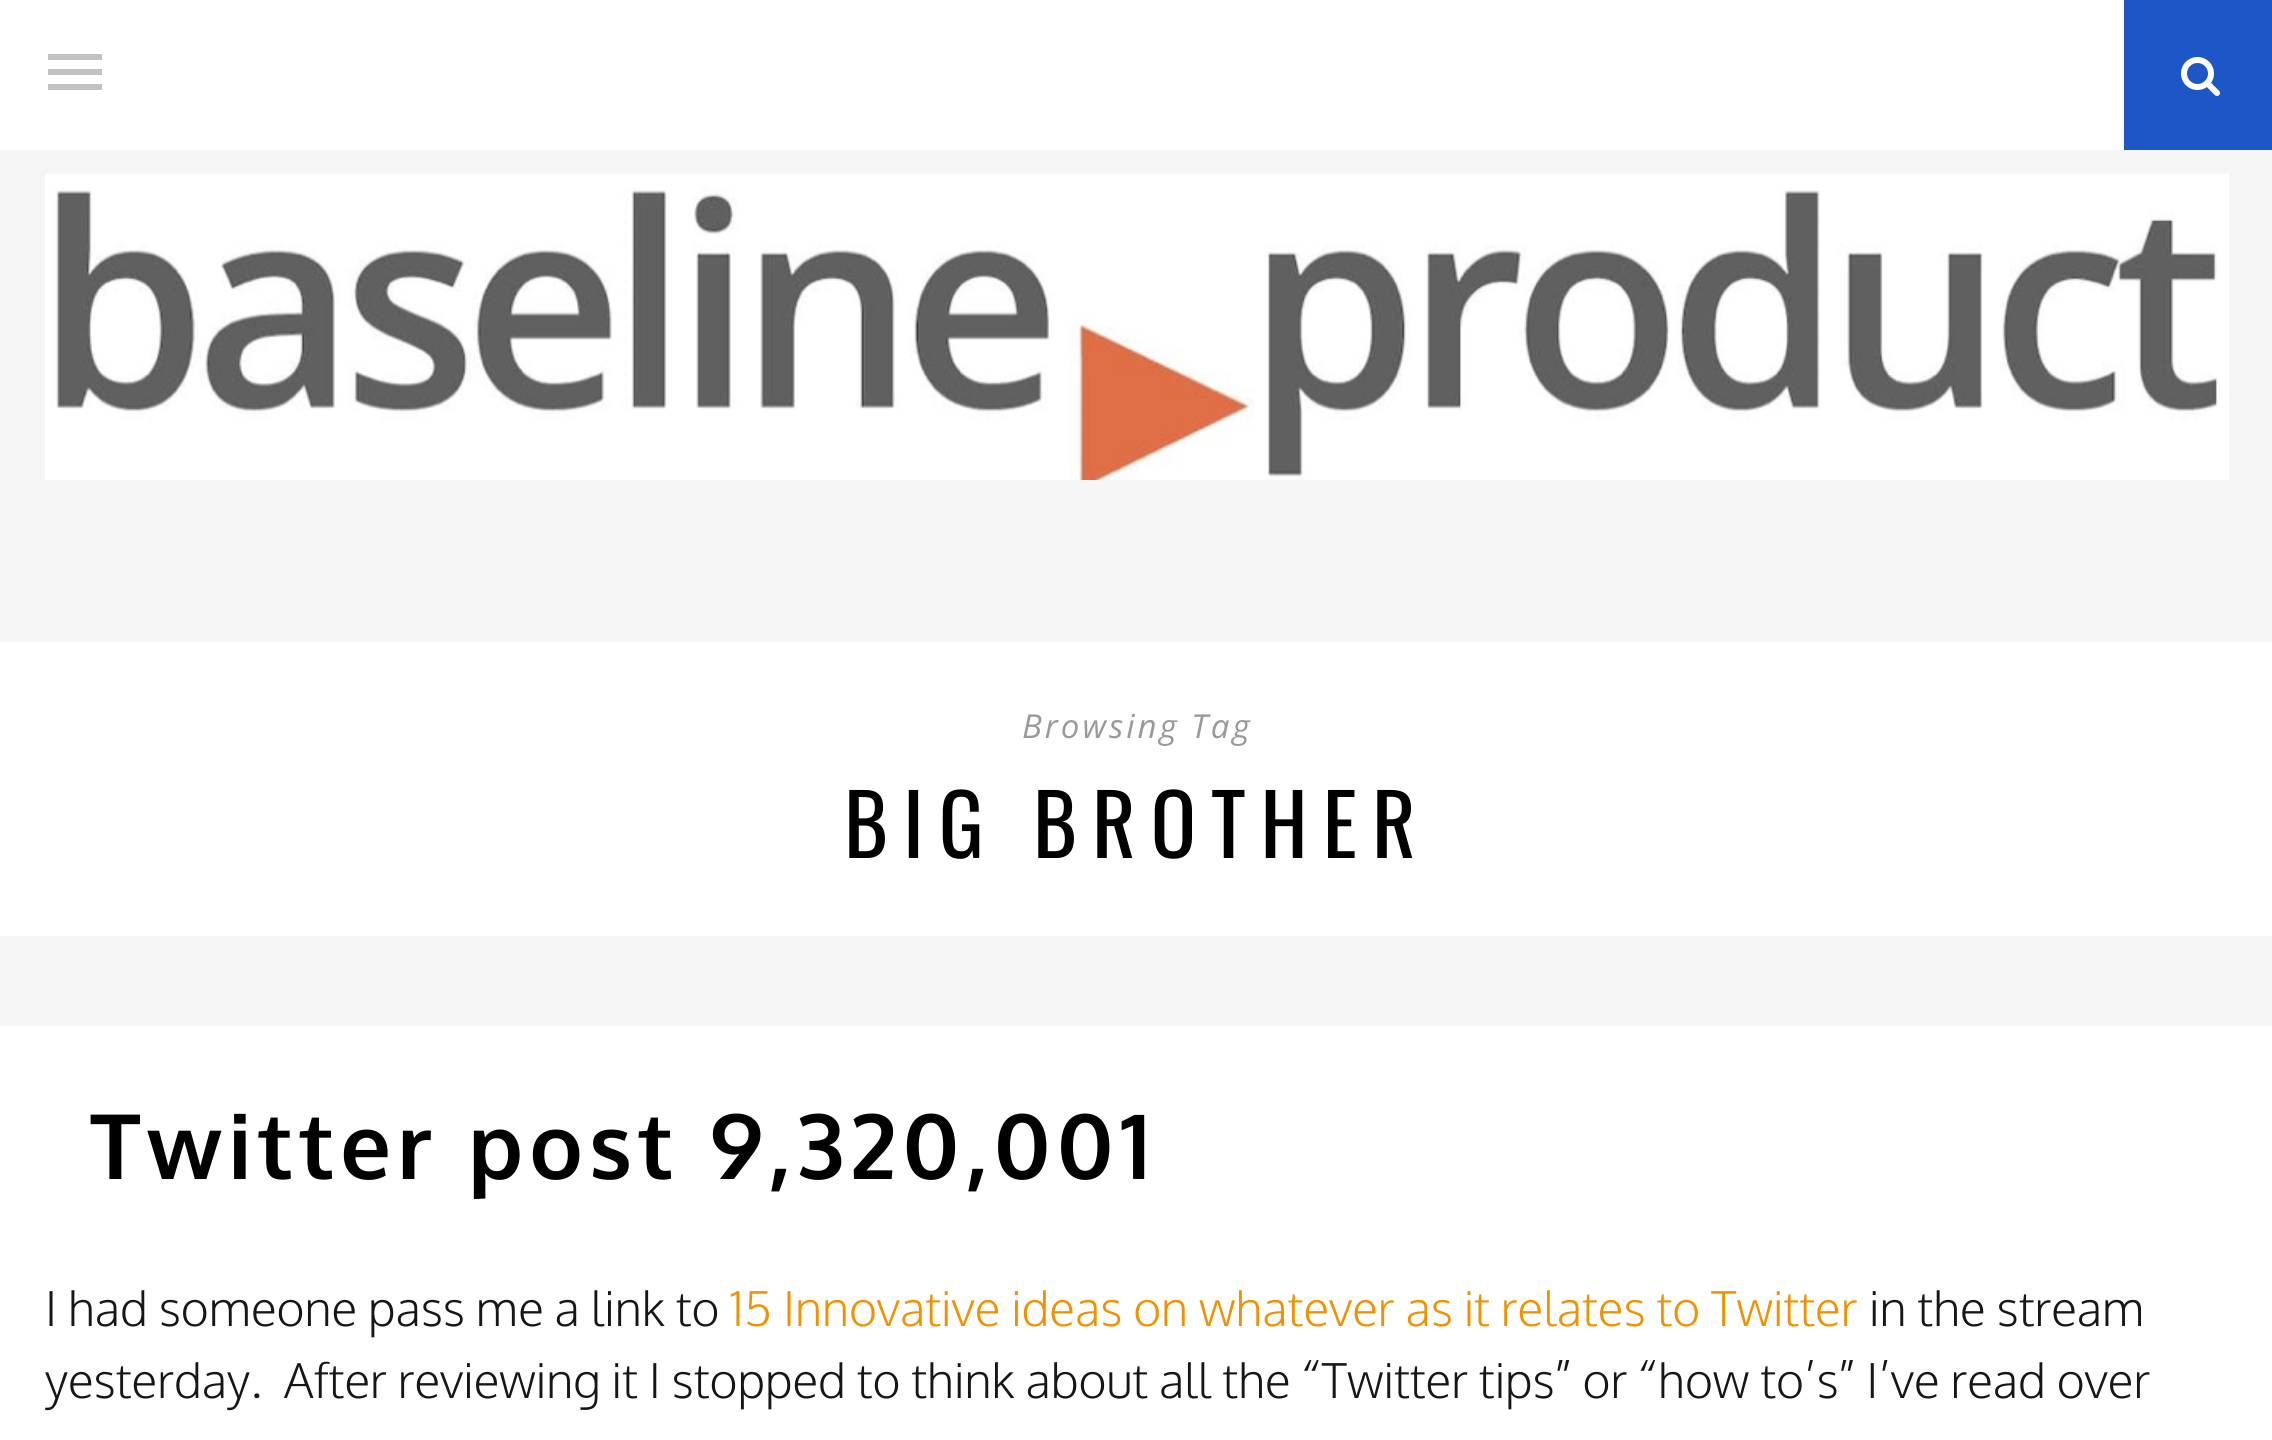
#include <cairo.h>
#include <math.h>
#include <stddef.h>

static cairo_t *ctx;

static void use_color(int r, int g, int b) {
    cairo_set_source_rgb(ctx, r / 255.0, g / 255.0, b / 255.0);
}

static void spaced_text(double x, double y, const char *s, double letter, double word) {
    cairo_move_to(ctx, x, y);
    while (*s) {
        char ch[5] = {0};
        int n = 0;
        do ch[n++] = *s++; while ((*s & 0xC0) == 0x80);
        cairo_show_text(ctx, ch);
        cairo_rel_move_to(ctx, letter + word * (*ch == ' '), 0);
    }
}

static void picture(const char *path, double x, double y, double w, double h) {
    cairo_surface_t *image = cairo_image_surface_create_from_png(path);
    cairo_save(ctx);
    cairo_set_source_surface(ctx, image, x, y);
    cairo_rectangle(ctx, x, y, w, h);
    cairo_fill(ctx);
    cairo_restore(ctx);
    cairo_surface_destroy(image);
}

int main(void) {
    cairo_surface_t *surface = cairo_image_surface_create(CAIRO_FORMAT_RGB24, 2272, 1440);
    ctx = cairo_create(surface);
    cairo_font_options_t *options = cairo_font_options_create();
    cairo_font_options_set_hint_metrics(options, CAIRO_HINT_METRICS_OFF);
    cairo_font_options_set_hint_style(options, CAIRO_HINT_STYLE_NONE);
    cairo_set_font_options(ctx, options);
    cairo_set_miter_limit(ctx, 4);
    use_color(245, 245, 245);
    cairo_paint(ctx);
    use_color(255, 255, 255);
    cairo_rectangle(ctx, 0, 0, 2124, 150);
    cairo_fill(ctx);
    use_color(194, 194, 194);
    cairo_rectangle(ctx, 48, 54, 54, 6);
    cairo_fill(ctx);
    cairo_rectangle(ctx, 48, 69, 54, 6);
    cairo_fill(ctx);
    cairo_rectangle(ctx, 48, 84, 54, 6);
    cairo_fill(ctx);
    use_color(29, 86, 198);
    cairo_rectangle(ctx, 2124, 0, 148, 150);
    cairo_fill(ctx);
    picture("img1.png", 2181, 57, 39, 39);
    picture("img2.png", 45, 174, 2184, 306);
    use_color(255, 255, 255);
    cairo_rectangle(ctx, 0, 642, 2272, 294);
    cairo_fill(ctx);
    cairo_select_font_face(ctx, "Open Sans", CAIRO_FONT_SLANT_ITALIC, CAIRO_FONT_WEIGHT_NORMAL);
    cairo_set_font_size(ctx, 33);
    use_color(153, 153, 153);
    spaced_text(1022, 738, "Browsing Tag", 3, 0);
    cairo_select_font_face(ctx, "Oswald", CAIRO_FONT_SLANT_NORMAL, CAIRO_FONT_WEIGHT_NORMAL);
    cairo_set_font_size(ctx, 84);
    use_color(0, 0, 0);
    spaced_text(844, 858, "BIG BROTHER", 15, 0);
    use_color(255, 255, 255);
    cairo_rectangle(ctx, 0, 1026, 2272, 414);
    cairo_fill(ctx);
    cairo_select_font_face(ctx, "Oxygen", CAIRO_FONT_SLANT_NORMAL, CAIRO_FONT_WEIGHT_BOLD);
    cairo_set_font_size(ctx, 90);
    use_color(0, 0, 0);
    spaced_text(90, 1179, "Twitter post 9,320,001", 6, 0);
    cairo_select_font_face(ctx, "Oxygen Light", CAIRO_FONT_SLANT_NORMAL, CAIRO_FONT_WEIGHT_NORMAL);
    cairo_set_font_size(ctx, 48);
    use_color(22, 22, 22);
    cairo_move_to(ctx, 45, 1326);
    cairo_show_text(ctx, "I had someone pass me a link to");
    use_color(242, 145, 0);
    cairo_move_to(ctx, 730, 1326);
    cairo_show_text(ctx, "15 Innovative ideas on whatever as it relates to Twitter");
    use_color(22, 22, 22);
    cairo_move_to(ctx, 1869, 1326);
    cairo_show_text(ctx, "in the stream");
    cairo_move_to(ctx, 45, 1398);
    cairo_show_text(ctx, "yesterday.  After reviewing it I stopped to think about all the “Twitter tips” or “how to’s” I’ve read over");
    cairo_surface_write_to_png(surface, "result.png");
    cairo_font_options_destroy(options);
    cairo_destroy(ctx);
    cairo_surface_destroy(surface);
    return 0;
}
